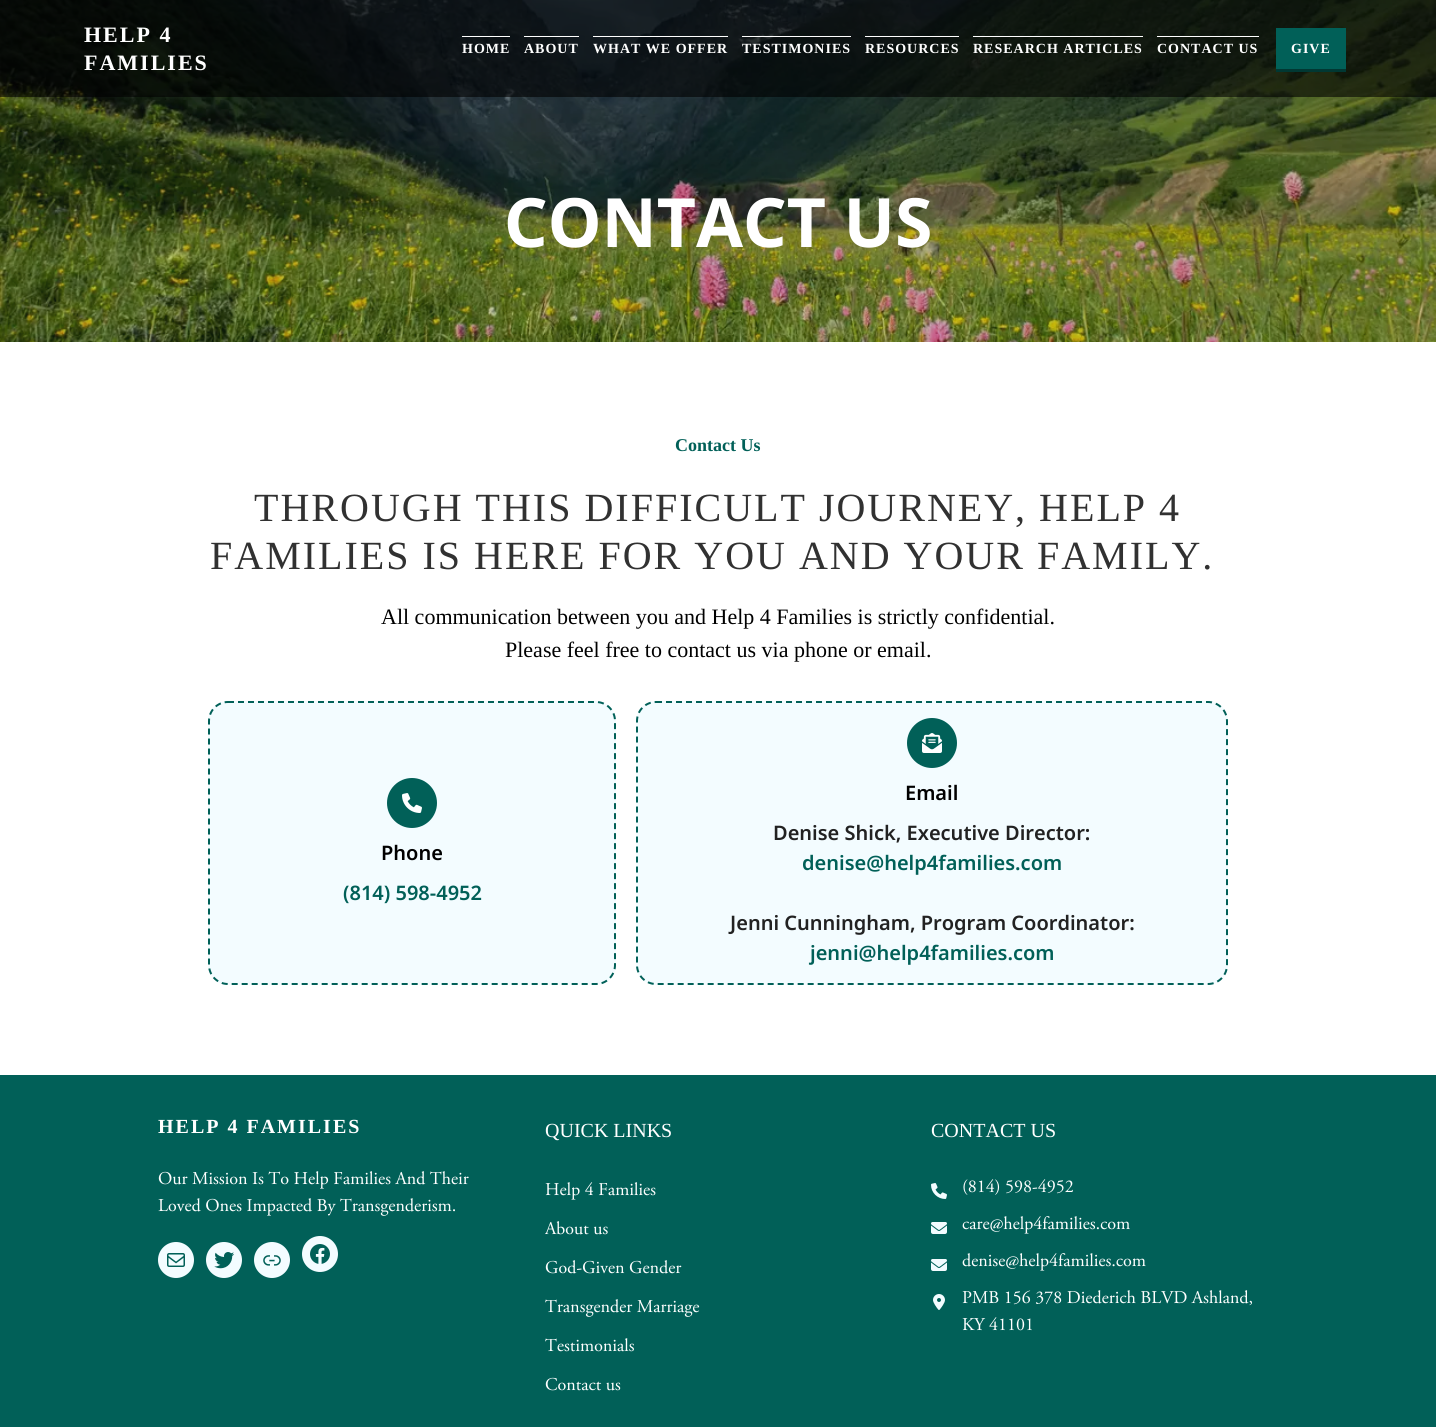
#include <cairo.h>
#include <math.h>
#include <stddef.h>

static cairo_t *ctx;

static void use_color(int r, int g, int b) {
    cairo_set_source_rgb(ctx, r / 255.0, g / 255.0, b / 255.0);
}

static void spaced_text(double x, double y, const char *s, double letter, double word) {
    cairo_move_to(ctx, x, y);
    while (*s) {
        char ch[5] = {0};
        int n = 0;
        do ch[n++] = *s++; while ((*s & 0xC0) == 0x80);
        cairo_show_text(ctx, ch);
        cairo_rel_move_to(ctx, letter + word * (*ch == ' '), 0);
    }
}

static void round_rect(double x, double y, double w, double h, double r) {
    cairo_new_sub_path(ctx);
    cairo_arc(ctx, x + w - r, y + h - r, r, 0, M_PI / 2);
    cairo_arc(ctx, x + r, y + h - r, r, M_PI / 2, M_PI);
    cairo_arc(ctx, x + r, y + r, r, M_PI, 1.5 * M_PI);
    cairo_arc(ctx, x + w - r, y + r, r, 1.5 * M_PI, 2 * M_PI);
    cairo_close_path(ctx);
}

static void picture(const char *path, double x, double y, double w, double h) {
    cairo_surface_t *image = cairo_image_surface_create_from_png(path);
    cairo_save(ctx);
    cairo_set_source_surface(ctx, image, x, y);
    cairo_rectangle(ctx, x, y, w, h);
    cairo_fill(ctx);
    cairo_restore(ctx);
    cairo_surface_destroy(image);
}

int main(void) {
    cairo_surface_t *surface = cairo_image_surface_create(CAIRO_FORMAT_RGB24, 1436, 1427);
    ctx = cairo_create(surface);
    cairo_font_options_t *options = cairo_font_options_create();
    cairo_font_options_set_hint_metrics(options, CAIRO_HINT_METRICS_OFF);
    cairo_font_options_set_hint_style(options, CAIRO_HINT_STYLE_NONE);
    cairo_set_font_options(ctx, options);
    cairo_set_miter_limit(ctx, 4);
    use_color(1, 96, 88);
    cairo_paint(ctx);
    picture("img1.png", 0, 0, 1436, 342);
    cairo_set_source_rgba(ctx, 0, 0, 0, 0.6);
    cairo_rectangle(ctx, 0, 0, 1436, 97);
    cairo_fill(ctx);
    cairo_select_font_face(ctx, "Liberation Serif", CAIRO_FONT_SLANT_NORMAL, CAIRO_FONT_WEIGHT_BOLD);
    cairo_set_font_size(ctx, 22);
    use_color(255, 255, 255);
    spaced_text(84, 42, "HELP 4", 2, 0);
    spaced_text(84, 70, "FAMILIES", 2, 0);
    cairo_rectangle(ctx, 462, 36, 48, 1);
    cairo_fill(ctx);
    cairo_set_font_size(ctx, 14);
    spaced_text(462, 53, "HOME", 1, 0);
    cairo_rectangle(ctx, 524, 36, 55, 1);
    cairo_fill(ctx);
    spaced_text(524, 53, "ABOUT", 1, 0);
    cairo_rectangle(ctx, 593, 36, 135, 1);
    cairo_fill(ctx);
    spaced_text(593, 53, "WHAT WE OFFER", 1, 0);
    cairo_rectangle(ctx, 742, 36, 109, 1);
    cairo_fill(ctx);
    spaced_text(742, 53, "TESTIMONIES", 1, 0);
    cairo_rectangle(ctx, 865, 36, 94, 1);
    cairo_fill(ctx);
    spaced_text(865, 53, "RESOURCES", 1, 0);
    cairo_rectangle(ctx, 973, 36, 170, 1);
    cairo_fill(ctx);
    spaced_text(973, 53, "RESEARCH ARTICLES", 1, 0);
    cairo_rectangle(ctx, 1157, 36, 102, 1);
    cairo_fill(ctx);
    spaced_text(1157, 53, "CONTACT US", 1, 0);
    use_color(1, 56, 51);
    cairo_rectangle(ctx, 1276, 69, 70, 3);
    cairo_fill(ctx);
    use_color(1, 96, 88);
    cairo_rectangle(ctx, 1276, 28, 70, 41);
    cairo_fill(ctx);
    use_color(255, 255, 255);
    spaced_text(1291, 53, "GIVE", 1, 0);
    cairo_rectangle(ctx, 0, 342, 1436, 733);
    cairo_fill(ctx);
    cairo_select_font_face(ctx, "Noto Sans", CAIRO_FONT_SLANT_NORMAL, CAIRO_FONT_WEIGHT_BOLD);
    cairo_set_font_size(ctx, 68);
    cairo_move_to(ctx, 504, 247);
    cairo_show_text(ctx, "CONTACT US");
    cairo_select_font_face(ctx, "Liberation Serif", CAIRO_FONT_SLANT_NORMAL, CAIRO_FONT_WEIGHT_BOLD);
    cairo_set_font_size(ctx, 18);
    use_color(1, 96, 88);
    cairo_move_to(ctx, 675, 451);
    cairo_show_text(ctx, "Contact Us");
    cairo_select_font_face(ctx, "Liberation Serif", CAIRO_FONT_SLANT_NORMAL, CAIRO_FONT_WEIGHT_NORMAL);
    cairo_set_font_size(ctx, 40);
    use_color(49, 49, 49);
    spaced_text(254, 521, "THROUGH THIS DIFFICULT JOURNEY, HELP 4", 2, 0);
    spaced_text(210, 569, "FAMILIES IS HERE FOR YOU AND YOUR FAMILY.", 2, 0);
    cairo_set_font_size(ctx, 22);
    use_color(0, 0, 0);
    cairo_move_to(ctx, 381, 624);
    cairo_show_text(ctx, "All communication between you and Help 4 Families is strictly confidential.");
    cairo_move_to(ctx, 505, 657);
    cairo_show_text(ctx, "Please feel free to contact us via phone or email.");
    use_color(243, 252, 255);
    round_rect(208, 701, 408, 284, 20);
    cairo_fill(ctx);
    cairo_new_path(ctx);
    cairo_move_to(ctx, 228, 702);
    cairo_line_to(ctx, 596, 702);
    cairo_curve_to(ctx, 606.5, 702, 615, 710.5, 615, 721);
    cairo_line_to(ctx, 615, 965);
    cairo_curve_to(ctx, 615, 975.5, 606.5, 984, 596, 984);
    cairo_line_to(ctx, 228, 984);
    cairo_curve_to(ctx, 217.5, 984, 209, 975.5, 209, 965);
    cairo_line_to(ctx, 209, 721);
    cairo_curve_to(ctx, 209, 710.5, 217.5, 702, 228, 702);
    cairo_close_path(ctx);
    use_color(1, 96, 88);
    cairo_set_dash(ctx, (double[]){6, 4}, 2, 0);
    cairo_stroke(ctx);
    cairo_arc(ctx, 412, 803, 25, 0, 2 * M_PI);
    cairo_fill(ctx);
    picture("img2.png", 402, 793, 20, 20);
    cairo_select_font_face(ctx, "Noto Sans SemiBold", CAIRO_FONT_SLANT_NORMAL, CAIRO_FONT_WEIGHT_NORMAL);
    cairo_set_font_size(ctx, 20);
    use_color(0, 0, 0);
    cairo_move_to(ctx, 381, 860);
    cairo_show_text(ctx, "Phone");
    use_color(1, 96, 88);
    cairo_move_to(ctx, 343, 900);
    cairo_show_text(ctx, "(814) 598-4952");
    use_color(243, 252, 255);
    round_rect(636, 701, 592, 284, 20);
    cairo_fill(ctx);
    cairo_new_path(ctx);
    cairo_move_to(ctx, 656, 702);
    cairo_line_to(ctx, 1208, 702);
    cairo_curve_to(ctx, 1218.5, 702, 1227, 710.5, 1227, 721);
    cairo_line_to(ctx, 1227, 965);
    cairo_curve_to(ctx, 1227, 975.5, 1218.5, 984, 1208, 984);
    cairo_line_to(ctx, 656, 984);
    cairo_curve_to(ctx, 645.5, 984, 637, 975.5, 637, 965);
    cairo_line_to(ctx, 637, 721);
    cairo_curve_to(ctx, 637, 710.5, 645.5, 702, 656, 702);
    cairo_close_path(ctx);
    use_color(1, 96, 88);
    cairo_stroke(ctx);
    cairo_arc(ctx, 932, 743, 25, 0, 2 * M_PI);
    cairo_fill(ctx);
    picture("img3.png", 922, 733, 20, 20);
    use_color(0, 0, 0);
    cairo_move_to(ctx, 905, 800);
    cairo_show_text(ctx, "Email");
    use_color(34, 34, 34);
    cairo_move_to(ctx, 773, 840);
    cairo_show_text(ctx, "Denise Shick, Executive Director:");
    use_color(1, 96, 88);
    cairo_move_to(ctx, 802, 870);
    cairo_show_text(ctx, "denise@help4families.com");
    use_color(34, 34, 34);
    cairo_move_to(ctx, 730, 930);
    cairo_show_text(ctx, "Jenni Cunningham, Program Coordinator:");
    use_color(1, 96, 88);
    cairo_move_to(ctx, 810, 960);
    cairo_show_text(ctx, "jenni@help4families.com");
    cairo_select_font_face(ctx, "Liberation Serif", CAIRO_FONT_SLANT_NORMAL, CAIRO_FONT_WEIGHT_BOLD);
    use_color(255, 255, 255);
    spaced_text(158, 1133, "HELP 4 FAMILIES", 2, 0);
    picture("img4.png", 158, 1171, 311, 18);
    picture("img5.png", 158, 1198, 297, 18);
    use_color(243, 252, 255);
    cairo_arc(ctx, 176, 1260, 18, 0, 2 * M_PI);
    cairo_fill(ctx);
    picture("img6.png", 167, 1253, 18, 14);
    cairo_arc(ctx, 224, 1260, 18, 0, 2 * M_PI);
    cairo_fill(ctx);
    picture("img7.png", 214, 1252, 20, 17);
    cairo_arc(ctx, 272, 1260, 18, 0, 2 * M_PI);
    cairo_fill(ctx);
    picture("img8.png", 263, 1255, 18, 11);
    cairo_arc(ctx, 320, 1254, 18, 0, 2 * M_PI);
    cairo_fill(ctx);
    picture("img9.png", 310, 1244, 20, 20);
    cairo_select_font_face(ctx, "Liberation Serif", CAIRO_FONT_SLANT_NORMAL, CAIRO_FONT_WEIGHT_NORMAL);
    use_color(255, 255, 255);
    cairo_move_to(ctx, 545, 1137);
    cairo_show_text(ctx, "QUICK LINKS");
    picture("img10.png", 545, 1182, 111, 18);
    picture("img11.png", 545, 1221, 63, 14);
    picture("img12.png", 545, 1260, 137, 14);
    picture("img13.png", 545, 1299, 155, 18);
    picture("img14.png", 545, 1338, 89, 14);
    picture("img15.png", 545, 1377, 76, 14);
    cairo_move_to(ctx, 931, 1137);
    cairo_show_text(ctx, "CONTACT US");
    picture("img16.png", 931, 1183, 16, 16);
    picture("img17.png", 963, 1179, 110, 16);
    picture("img18.png", 931, 1222, 16, 12);
    picture("img19.png", 962, 1216, 168, 18);
    picture("img18.png", 931, 1259, 16, 12);
    picture("img20.png", 962, 1253, 184, 18);
    picture("img21.png", 933, 1294, 12, 16);
    picture("img22.png", 962, 1290, 290, 16);
    picture("img23.png", 962, 1317, 70, 14);
    cairo_surface_write_to_png(surface, "result.png");
    cairo_font_options_destroy(options);
    cairo_destroy(ctx);
    cairo_surface_destroy(surface);
    return 0;
}
